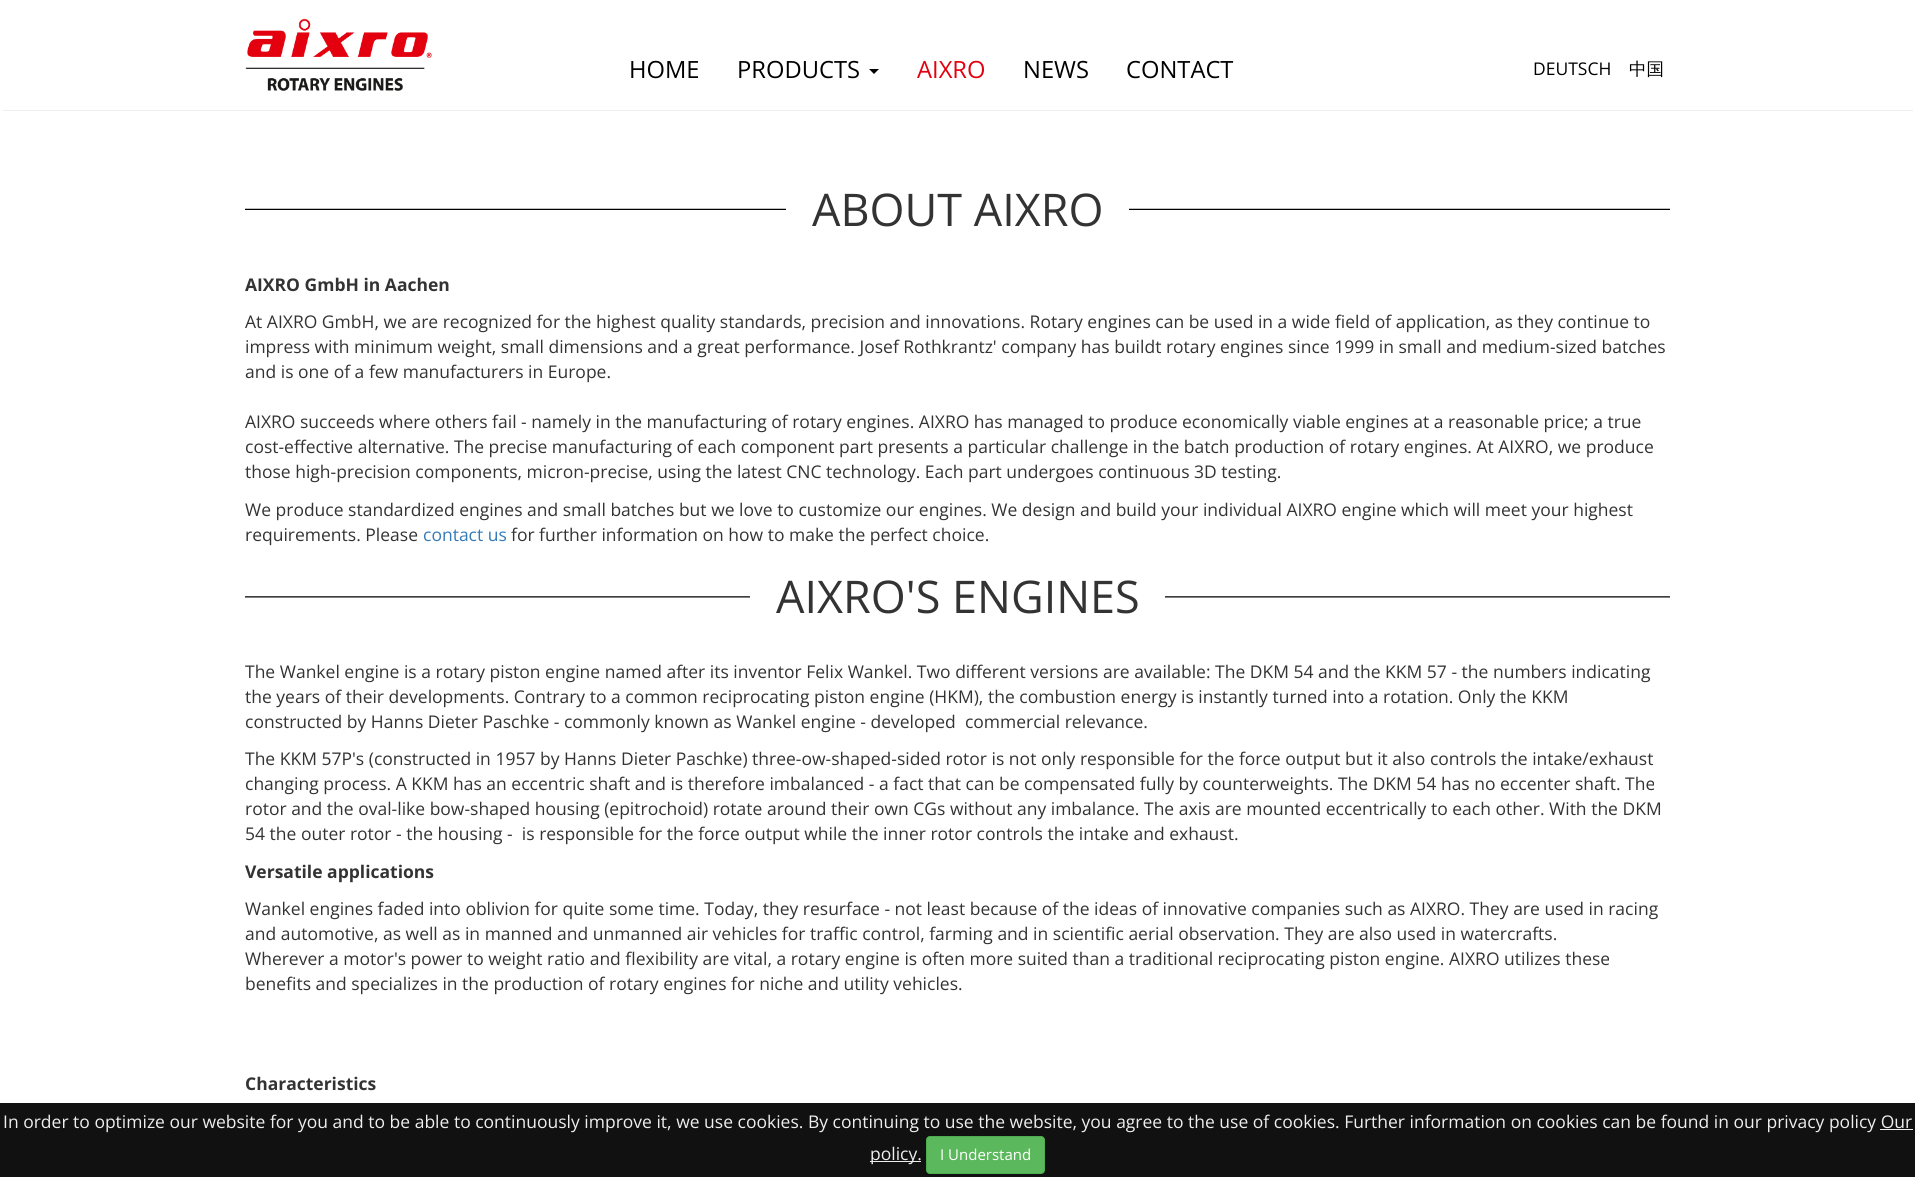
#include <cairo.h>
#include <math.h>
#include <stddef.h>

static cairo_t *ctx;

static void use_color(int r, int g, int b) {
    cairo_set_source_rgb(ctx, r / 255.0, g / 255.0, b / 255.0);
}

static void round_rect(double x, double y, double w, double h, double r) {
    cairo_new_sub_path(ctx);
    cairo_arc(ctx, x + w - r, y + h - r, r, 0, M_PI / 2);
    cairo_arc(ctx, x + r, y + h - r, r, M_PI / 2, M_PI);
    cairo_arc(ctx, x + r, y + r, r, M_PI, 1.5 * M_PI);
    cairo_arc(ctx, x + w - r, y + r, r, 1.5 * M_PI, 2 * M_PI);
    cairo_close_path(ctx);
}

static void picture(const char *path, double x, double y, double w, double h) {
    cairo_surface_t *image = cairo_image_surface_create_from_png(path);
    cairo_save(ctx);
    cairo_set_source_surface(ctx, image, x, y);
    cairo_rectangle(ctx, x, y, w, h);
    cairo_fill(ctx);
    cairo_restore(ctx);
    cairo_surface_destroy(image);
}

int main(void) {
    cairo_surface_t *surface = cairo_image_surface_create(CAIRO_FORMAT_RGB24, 1915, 1177);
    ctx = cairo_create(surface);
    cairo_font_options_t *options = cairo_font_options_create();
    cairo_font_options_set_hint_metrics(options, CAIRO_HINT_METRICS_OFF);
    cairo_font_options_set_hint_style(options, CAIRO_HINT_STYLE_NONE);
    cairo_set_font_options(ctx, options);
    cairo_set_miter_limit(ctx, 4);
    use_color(255, 255, 255);
    cairo_paint(ctx);
    use_color(238, 238, 238);
    cairo_rectangle(ctx, 3, 110, 1910, 1);
    cairo_fill(ctx);
    picture("img1.png", 245, 18, 187, 73);
    cairo_select_font_face(ctx, "Open Sans", CAIRO_FONT_SLANT_NORMAL, CAIRO_FONT_WEIGHT_NORMAL);
    cairo_set_font_size(ctx, 23.75);
    use_color(0, 0, 0);
    cairo_move_to(ctx, 629, 78);
    cairo_show_text(ctx, "HOME");
    cairo_move_to(ctx, 737, 78);
    cairo_show_text(ctx, "PRODUCTS");
    cairo_new_path(ctx);
    cairo_move_to(ctx, 869, 69);
    cairo_line_to(ctx, 879, 69);
    cairo_line_to(ctx, 874, 74);
    cairo_close_path(ctx);
    cairo_fill(ctx);
    use_color(227, 0, 15);
    cairo_move_to(ctx, 917, 78);
    cairo_show_text(ctx, "AIXRO");
    use_color(0, 0, 0);
    cairo_move_to(ctx, 1023, 78);
    cairo_show_text(ctx, "NEWS");
    cairo_move_to(ctx, 1126, 78);
    cairo_show_text(ctx, "CONTACT");
    cairo_set_font_size(ctx, 17.5);
    cairo_move_to(ctx, 1533, 75);
    cairo_show_text(ctx, "DEUTSCH");
    cairo_select_font_face(ctx, "WenQuanYi Zen Hei Medium", CAIRO_FONT_SLANT_NORMAL, CAIRO_FONT_WEIGHT_NORMAL);
    cairo_move_to(ctx, 1629, 75);
    cairo_show_text(ctx, "中国");
    picture("img2.png", 245, 208, 1425, 2);
    use_color(255, 255, 255);
    cairo_rectangle(ctx, 786, 208, 343, 2);
    cairo_fill(ctx);
    cairo_select_font_face(ctx, "Open Sans", CAIRO_FONT_SLANT_NORMAL, CAIRO_FONT_WEIGHT_NORMAL);
    cairo_set_font_size(ctx, 45);
    use_color(51, 51, 51);
    cairo_move_to(ctx, 812, 226);
    cairo_show_text(ctx, "ABOUT AIXRO");
    cairo_select_font_face(ctx, "Open Sans", CAIRO_FONT_SLANT_NORMAL, CAIRO_FONT_WEIGHT_BOLD);
    cairo_set_font_size(ctx, 17.5);
    cairo_move_to(ctx, 245, 291);
    cairo_show_text(ctx, "AIXRO GmbH in Aachen");
    cairo_select_font_face(ctx, "Open Sans", CAIRO_FONT_SLANT_NORMAL, CAIRO_FONT_WEIGHT_NORMAL);
    cairo_move_to(ctx, 245, 328);
    cairo_show_text(ctx, "At AIXRO GmbH, we are recognized for the highest quality standards, precision and innovations. Rotary engines can be used in a wide field of application, as they continue to");
    cairo_move_to(ctx, 245, 353);
    cairo_show_text(ctx, "impress with minimum weight, small dimensions and a great performance. Josef Rothkrantz' company has buildt rotary engines since 1999 in small and medium-sized batches");
    cairo_move_to(ctx, 245, 378);
    cairo_show_text(ctx, "and is one of a few manufacturers in Europe.");
    cairo_move_to(ctx, 245, 428);
    cairo_show_text(ctx, "AIXRO succeeds where others fail - namely in the manufacturing of rotary engines. AIXRO has managed to produce economically viable engines at a reasonable price; a true");
    cairo_move_to(ctx, 245, 453);
    cairo_show_text(ctx, "cost-effective alternative. The precise manufacturing of each component part presents a particular challenge in the batch production of rotary engines. At AIXRO, we produce");
    cairo_move_to(ctx, 245, 478);
    cairo_show_text(ctx, "those high-precision components, micron-precise, using the latest CNC technology. Each part undergoes continuous 3D testing.");
    cairo_move_to(ctx, 245, 516);
    cairo_show_text(ctx, "We produce standardized engines and small batches but we love to customize our engines. We design and build your individual AIXRO engine which will meet your highest");
    cairo_move_to(ctx, 245, 541);
    cairo_show_text(ctx, "requirements. Please");
    use_color(51, 122, 183);
    cairo_move_to(ctx, 423, 541);
    cairo_show_text(ctx, "contact us");
    use_color(51, 51, 51);
    cairo_move_to(ctx, 511, 541);
    cairo_show_text(ctx, "for further information on how to make the perfect choice.");
    picture("img3.png", 245, 596, 1425, 2);
    use_color(255, 255, 255);
    cairo_rectangle(ctx, 750, 596, 415, 2);
    cairo_fill(ctx);
    cairo_set_font_size(ctx, 45);
    use_color(51, 51, 51);
    cairo_move_to(ctx, 776, 613);
    cairo_show_text(ctx, "AIXRO'S ENGINES");
    cairo_set_font_size(ctx, 17.5);
    cairo_move_to(ctx, 245, 678);
    cairo_show_text(ctx, "The Wankel engine is a rotary piston engine named after its inventor Felix Wankel. Two different versions are available: The DKM 54 and the KKM 57 - the numbers indicating");
    cairo_move_to(ctx, 245, 703);
    cairo_show_text(ctx, "the years of their developments. Contrary to a common reciprocating piston engine (HKM), the combustion energy is instantly turned into a rotation. Only the KKM");
    cairo_move_to(ctx, 245, 728);
    cairo_show_text(ctx, "constructed by Hanns Dieter Paschke - commonly known as Wankel engine - developed  commercial relevance.");
    cairo_move_to(ctx, 245, 765);
    cairo_show_text(ctx, "The KKM 57P's (constructed in 1957 by Hanns Dieter Paschke) three-ow-shaped-sided rotor is not only responsible for the force output but it also controls the intake/exhaust");
    cairo_move_to(ctx, 245, 790);
    cairo_show_text(ctx, "changing process. A KKM has an eccentric shaft and is therefore imbalanced - a fact that can be compensated fully by counterweights. The DKM 54 has no eccenter shaft. The");
    cairo_move_to(ctx, 245, 815);
    cairo_show_text(ctx, "rotor and the oval-like bow-shaped housing (epitrochoid) rotate around their own CGs without any imbalance. The axis are mounted eccentrically to each other. With the DKM");
    cairo_move_to(ctx, 245, 840);
    cairo_show_text(ctx, "54 the outer rotor - the housing -  is responsible for the force output while the inner rotor controls the intake and exhaust.");
    cairo_select_font_face(ctx, "Open Sans", CAIRO_FONT_SLANT_NORMAL, CAIRO_FONT_WEIGHT_BOLD);
    cairo_move_to(ctx, 245, 878);
    cairo_show_text(ctx, "Versatile applications");
    cairo_select_font_face(ctx, "Open Sans", CAIRO_FONT_SLANT_NORMAL, CAIRO_FONT_WEIGHT_NORMAL);
    cairo_move_to(ctx, 245, 915);
    cairo_show_text(ctx, "Wankel engines faded into oblivion for quite some time. Today, they resurface - not least because of the ideas of innovative companies such as AIXRO. They are used in racing");
    cairo_move_to(ctx, 245, 940);
    cairo_show_text(ctx, "and automotive, as well as in manned and unmanned air vehicles for traffic control, farming and in scientific aerial observation. They are also used in watercrafts.");
    cairo_move_to(ctx, 245, 965);
    cairo_show_text(ctx, "Wherever a motor's power to weight ratio and flexibility are vital, a rotary engine is often more suited than a traditional reciprocating piston engine. AIXRO utilizes these");
    cairo_move_to(ctx, 245, 990);
    cairo_show_text(ctx, "benefits and specializes in the production of rotary engines for niche and utility vehicles.");
    cairo_select_font_face(ctx, "Open Sans", CAIRO_FONT_SLANT_NORMAL, CAIRO_FONT_WEIGHT_BOLD);
    cairo_move_to(ctx, 245, 1090);
    cairo_show_text(ctx, "Characteristics");
    use_color(17, 17, 17);
    cairo_rectangle(ctx, 0, 1103, 1915, 74);
    cairo_fill(ctx);
    cairo_select_font_face(ctx, "Open Sans", CAIRO_FONT_SLANT_NORMAL, CAIRO_FONT_WEIGHT_NORMAL);
    use_color(238, 238, 238);
    cairo_move_to(ctx, 3, 1128);
    cairo_show_text(ctx, "In order to optimize our website for you and to be able to continuously improve it, we use cookies. By continuing to use the website, you agree to the use of cookies. Further information on cookies can be found in our privacy policy Our");
    cairo_rectangle(ctx, 870, 1161, 51, 1);
    cairo_fill(ctx);
    cairo_move_to(ctx, 870, 1160);
    cairo_show_text(ctx, "policy.");
    cairo_rectangle(ctx, 1880, 1129, 33, 1);
    cairo_fill(ctx);
    use_color(92, 184, 92);
    round_rect(926.5, 1136.5, 118, 37, 3.5);
    cairo_fill_preserve(ctx);
    use_color(76, 174, 76);
    cairo_set_line_width(ctx, 1);
    cairo_stroke(ctx);
    cairo_set_font_size(ctx, 15);
    use_color(255, 255, 255);
    cairo_move_to(ctx, 940, 1160);
    cairo_show_text(ctx, "I Understand");
    cairo_surface_write_to_png(surface, "result.png");
    cairo_font_options_destroy(options);
    cairo_destroy(ctx);
    cairo_surface_destroy(surface);
    return 0;
}
